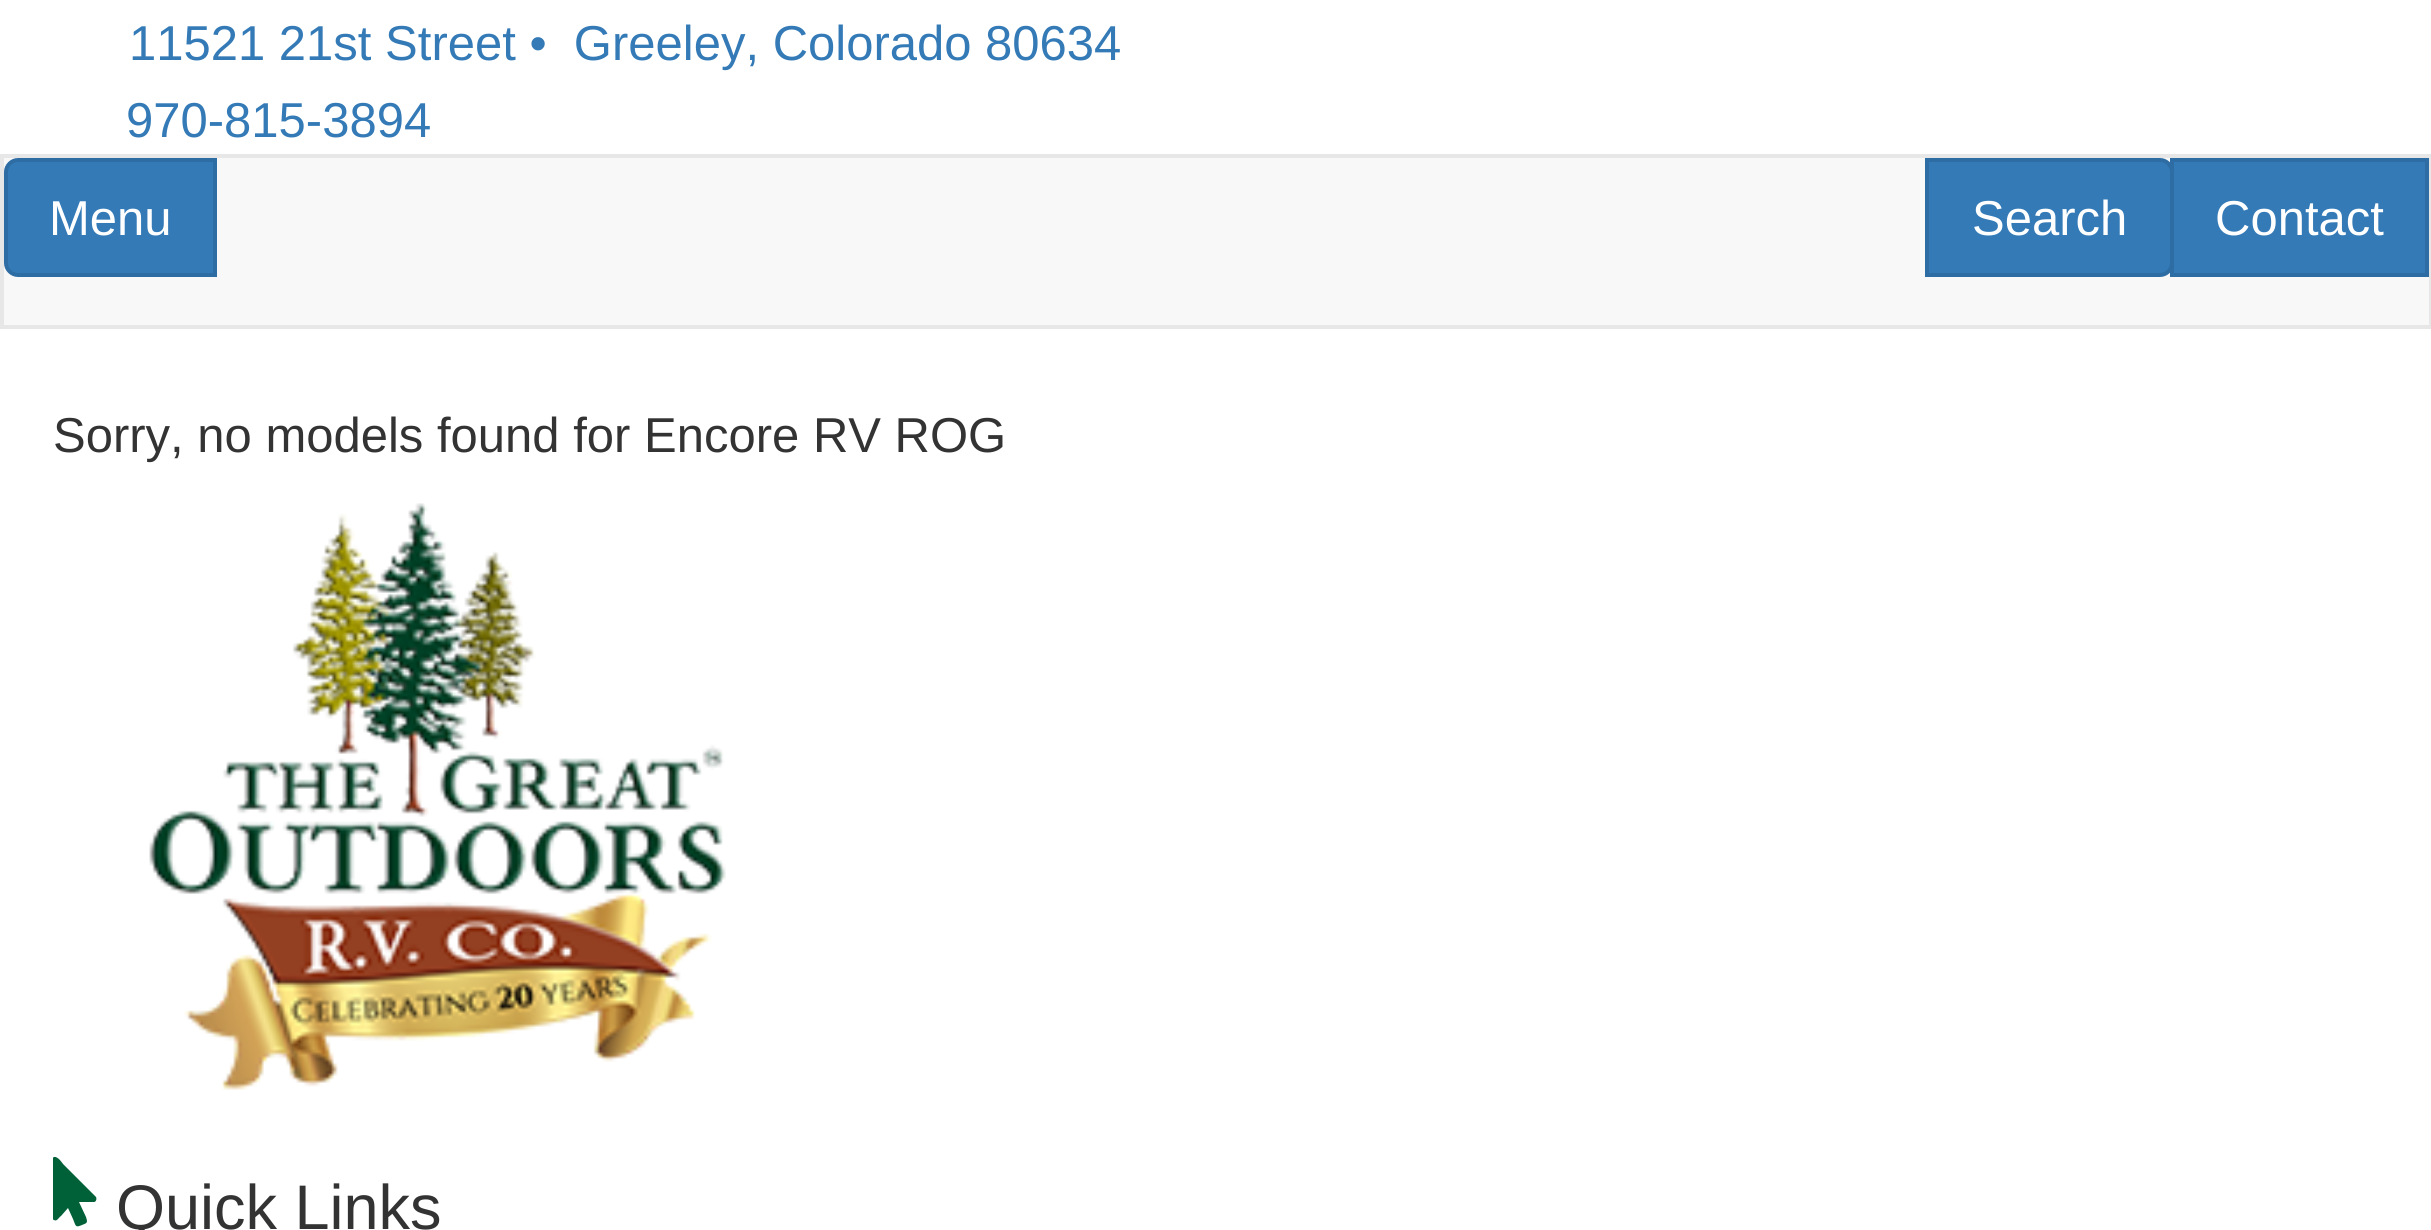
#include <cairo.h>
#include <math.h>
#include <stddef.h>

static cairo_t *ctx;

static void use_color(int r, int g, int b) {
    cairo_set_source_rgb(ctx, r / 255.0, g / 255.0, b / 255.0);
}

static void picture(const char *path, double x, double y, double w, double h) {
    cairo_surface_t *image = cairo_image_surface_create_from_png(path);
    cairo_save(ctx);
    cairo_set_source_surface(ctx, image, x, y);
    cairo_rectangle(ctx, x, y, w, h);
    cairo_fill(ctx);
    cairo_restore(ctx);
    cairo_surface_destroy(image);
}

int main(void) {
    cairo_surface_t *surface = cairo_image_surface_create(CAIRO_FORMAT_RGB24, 2431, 1230);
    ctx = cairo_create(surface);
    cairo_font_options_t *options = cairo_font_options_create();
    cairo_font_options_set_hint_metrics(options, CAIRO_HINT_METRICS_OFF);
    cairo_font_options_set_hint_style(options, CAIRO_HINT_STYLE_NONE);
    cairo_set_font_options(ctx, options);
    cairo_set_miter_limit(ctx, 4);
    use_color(255, 255, 255);
    cairo_paint(ctx);
    cairo_select_font_face(ctx, "Liberation Sans", CAIRO_FONT_SLANT_NORMAL, CAIRO_FONT_WEIGHT_NORMAL);
    cairo_set_font_size(ctx, 49);
    use_color(51, 122, 183);
    cairo_move_to(ctx, 129, 60);
    cairo_show_text(ctx, "11521 21st Street •  Greeley, Colorado 80634");
    cairo_move_to(ctx, 126, 137);
    cairo_show_text(ctx, "970-815-3894");
    use_color(248, 248, 248);
    cairo_rectangle(ctx, 2, 156, 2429, 171);
    cairo_fill_preserve(ctx);
    use_color(231, 231, 231);
    cairo_set_line_width(ctx, 4);
    cairo_stroke(ctx);
    use_color(51, 122, 183);
    cairo_new_path(ctx);
    cairo_move_to(ctx, 18, 160);
    cairo_line_to(ctx, 215, 160);
    cairo_line_to(ctx, 215, 275);
    cairo_line_to(ctx, 18, 275);
    cairo_curve_to(ctx, 11.5, 275, 6, 269.5, 6, 263);
    cairo_line_to(ctx, 6, 172);
    cairo_curve_to(ctx, 6, 165.5, 11.5, 160, 18, 160);
    cairo_close_path(ctx);
    cairo_fill_preserve(ctx);
    use_color(46, 109, 164);
    cairo_stroke(ctx);
    use_color(255, 255, 255);
    cairo_move_to(ctx, 49, 235);
    cairo_show_text(ctx, "Menu");
    use_color(51, 122, 183);
    cairo_rectangle(ctx, 2172, 160, 255, 115);
    cairo_fill_preserve(ctx);
    use_color(46, 109, 164);
    cairo_stroke(ctx);
    use_color(51, 122, 183);
    cairo_new_path(ctx);
    cairo_move_to(ctx, 1927, 160);
    cairo_line_to(ctx, 2160, 160);
    cairo_curve_to(ctx, 2166.5, 160, 2172, 165.5, 2172, 172);
    cairo_line_to(ctx, 2172, 263);
    cairo_curve_to(ctx, 2172, 269.5, 2166.5, 275, 2160, 275);
    cairo_line_to(ctx, 1927, 275);
    cairo_close_path(ctx);
    cairo_fill_preserve(ctx);
    use_color(46, 109, 164);
    cairo_stroke(ctx);
    use_color(255, 255, 255);
    cairo_move_to(ctx, 1972, 235);
    cairo_show_text(ctx, "Search");
    cairo_move_to(ctx, 2215, 235);
    cairo_show_text(ctx, "Contact");
    use_color(51, 51, 51);
    cairo_move_to(ctx, 53, 452);
    cairo_show_text(ctx, "Sorry, no models found for Encore RV ROG");
    picture("img1.png", 149, 503, 577, 587);
    cairo_save(ctx);
    cairo_rectangle(ctx, 53, 1155, 45, 74);
    cairo_clip(ctx);
    use_color(0, 97, 57);
    cairo_new_path(ctx);
    cairo_move_to(ctx, 94, 1202);
    cairo_curve_to(ctx, 96, 1202, 97, 1199, 96, 1197);
    cairo_line_to(ctx, 63, 1164);
    cairo_curve_to(ctx, 63, 1164, 58, 1156, 54, 1157);
    cairo_curve_to(ctx, 51, 1158, 52, 1167, 52, 1169);
    cairo_line_to(ctx, 52, 1208);
    cairo_curve_to(ctx, 52, 1208, 50, 1219, 54, 1220);
    cairo_curve_to(ctx, 57, 1222, 59, 1217, 61, 1216);
    cairo_line_to(ctx, 68, 1208);
    cairo_line_to(ctx, 73, 1219);
    cairo_curve_to(ctx, 76, 1226, 75, 1228, 82, 1225);
    cairo_curve_to(ctx, 87, 1223, 88, 1223, 86, 1217);
    cairo_line_to(ctx, 79, 1202);
    cairo_close_path(ctx);
    cairo_fill(ctx);
    cairo_restore(ctx);
    cairo_set_font_size(ctx, 63);
    cairo_move_to(ctx, 116, 1229);
    cairo_show_text(ctx, "Quick Links");
    cairo_surface_write_to_png(surface, "result.png");
    cairo_font_options_destroy(options);
    cairo_destroy(ctx);
    cairo_surface_destroy(surface);
    return 0;
}
